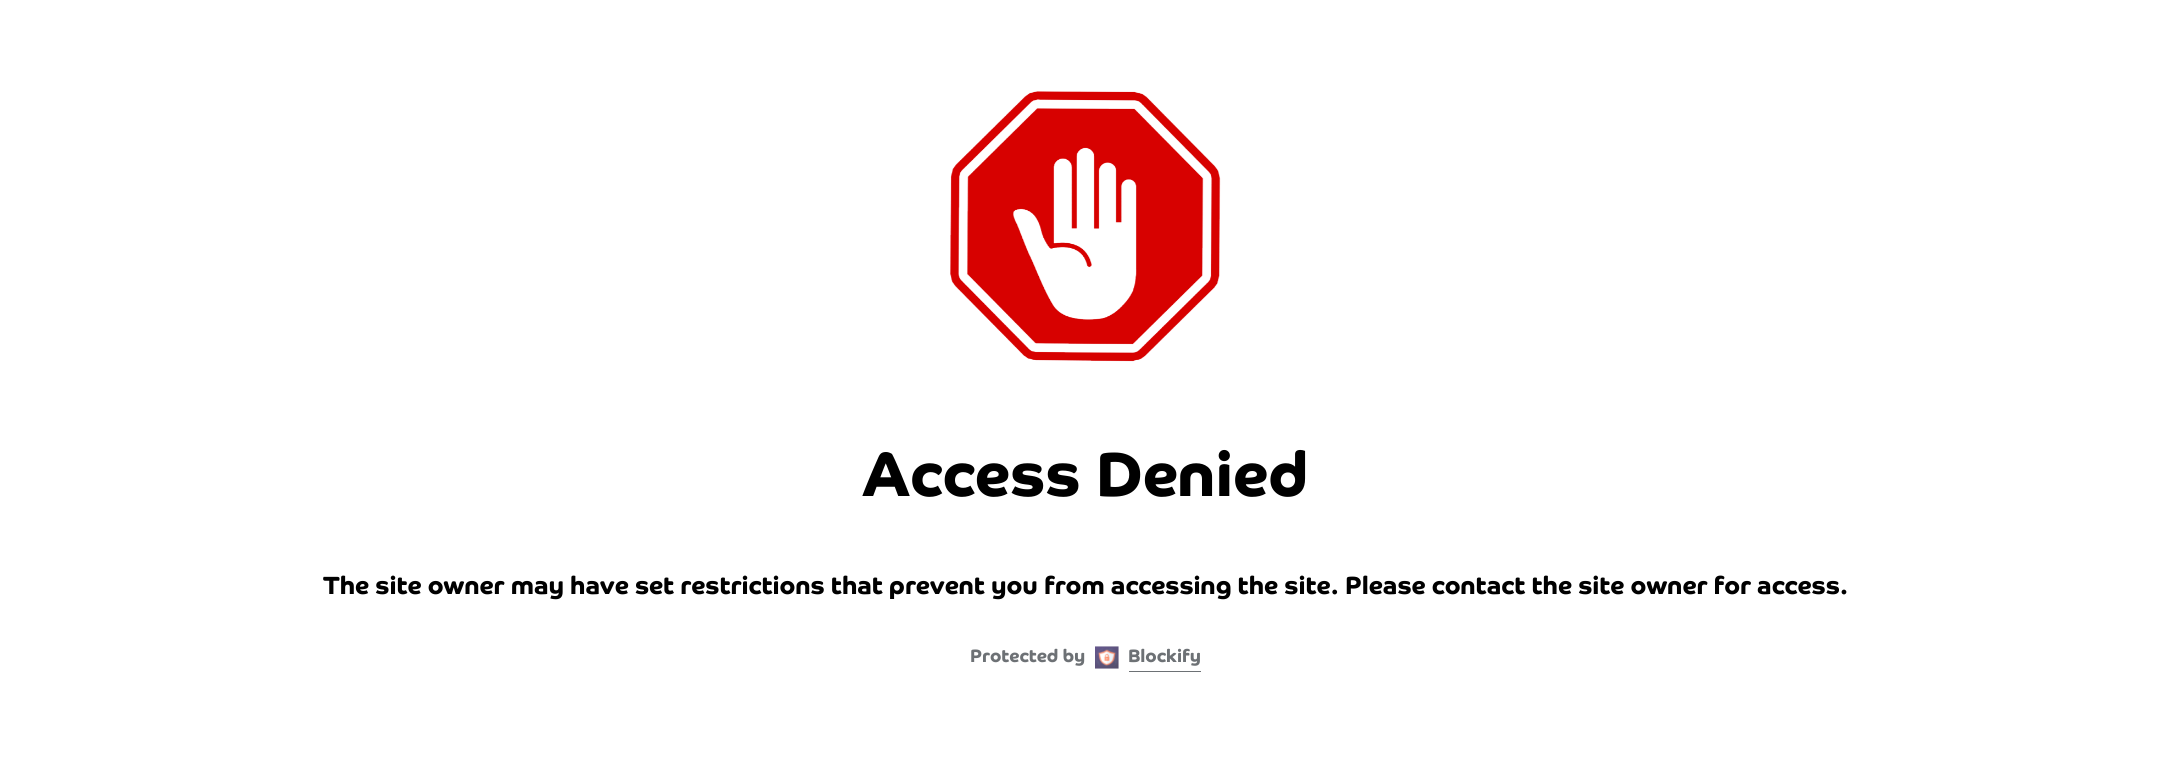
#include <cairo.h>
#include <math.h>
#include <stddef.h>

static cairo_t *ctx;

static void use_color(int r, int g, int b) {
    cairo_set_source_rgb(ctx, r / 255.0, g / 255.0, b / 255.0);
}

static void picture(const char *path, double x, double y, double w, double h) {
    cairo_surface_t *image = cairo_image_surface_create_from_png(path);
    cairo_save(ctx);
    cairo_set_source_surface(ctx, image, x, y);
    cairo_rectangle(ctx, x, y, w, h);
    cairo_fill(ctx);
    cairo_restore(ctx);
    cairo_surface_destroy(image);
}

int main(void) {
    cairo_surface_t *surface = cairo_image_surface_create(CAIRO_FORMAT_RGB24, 2171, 757);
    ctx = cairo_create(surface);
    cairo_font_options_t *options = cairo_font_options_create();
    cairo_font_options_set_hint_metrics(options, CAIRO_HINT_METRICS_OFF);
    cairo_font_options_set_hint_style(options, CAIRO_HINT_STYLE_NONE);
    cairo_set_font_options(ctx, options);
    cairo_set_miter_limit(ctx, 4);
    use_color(255, 255, 255);
    cairo_paint(ctx);
    picture("img1.png", 950, 91, 271, 271);
    cairo_select_font_face(ctx, "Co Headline", CAIRO_FONT_SLANT_NORMAL, CAIRO_FONT_WEIGHT_BOLD);
    cairo_set_font_size(ctx, 62.5);
    use_color(0, 0, 0);
    cairo_move_to(ctx, 862, 496);
    cairo_show_text(ctx, "Access Denied");
    cairo_set_font_size(ctx, 25);
    cairo_move_to(ctx, 323, 594);
    cairo_show_text(ctx, "The site owner may have set restrictions that prevent you from accessing the site. Please contact the site owner for access.");
    cairo_set_font_size(ctx, 18);
    use_color(109, 113, 117);
    cairo_move_to(ctx, 970, 662);
    cairo_show_text(ctx, "Protected by");
    picture("img2.png", 1095, 646, 24, 23);
    cairo_rectangle(ctx, 1129, 671, 72, 1);
    cairo_fill(ctx);
    cairo_move_to(ctx, 1128, 662);
    cairo_show_text(ctx, "Blockify");
    cairo_surface_write_to_png(surface, "result.png");
    cairo_font_options_destroy(options);
    cairo_destroy(ctx);
    cairo_surface_destroy(surface);
    return 0;
}
